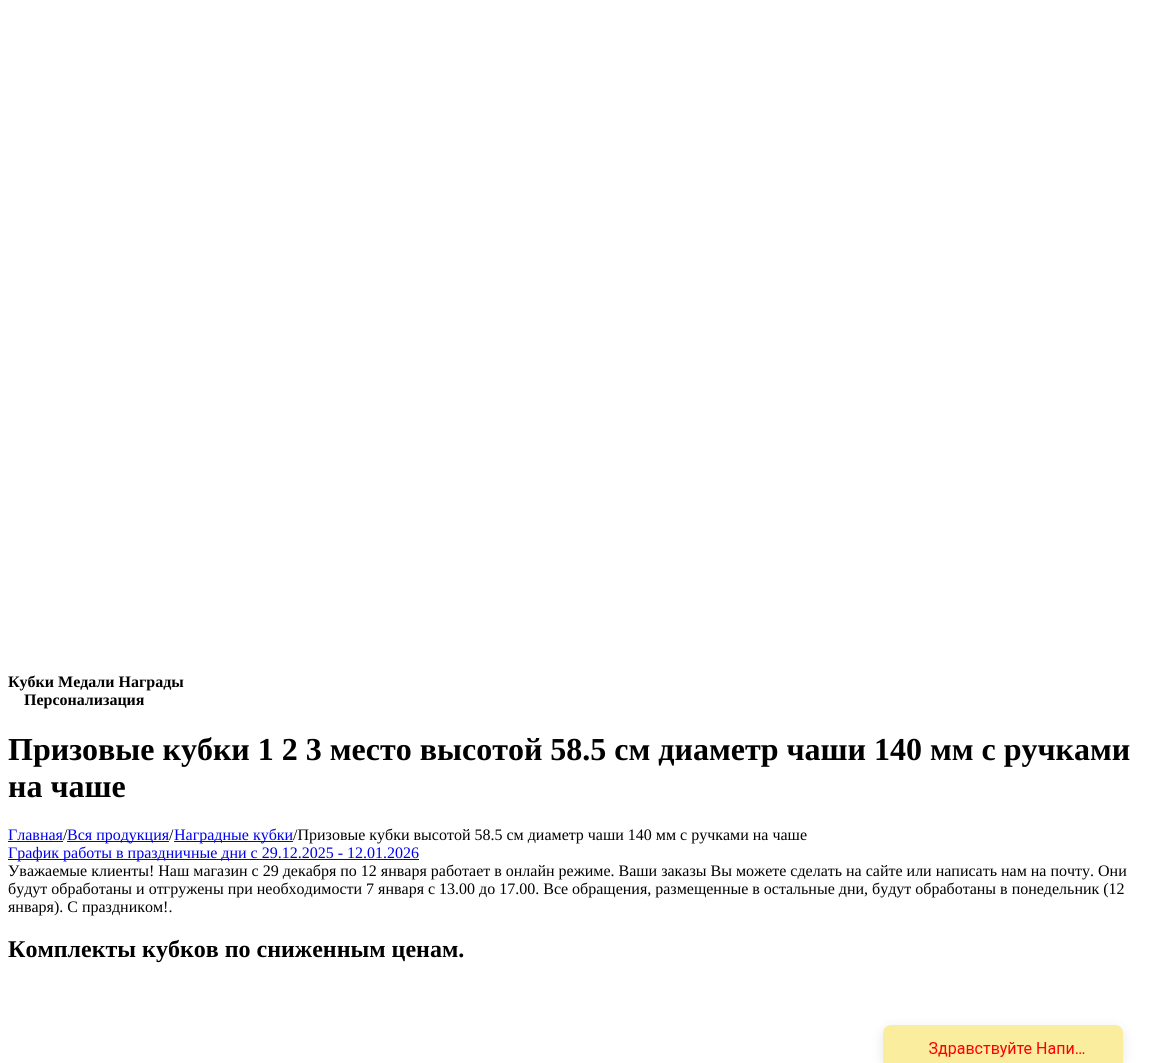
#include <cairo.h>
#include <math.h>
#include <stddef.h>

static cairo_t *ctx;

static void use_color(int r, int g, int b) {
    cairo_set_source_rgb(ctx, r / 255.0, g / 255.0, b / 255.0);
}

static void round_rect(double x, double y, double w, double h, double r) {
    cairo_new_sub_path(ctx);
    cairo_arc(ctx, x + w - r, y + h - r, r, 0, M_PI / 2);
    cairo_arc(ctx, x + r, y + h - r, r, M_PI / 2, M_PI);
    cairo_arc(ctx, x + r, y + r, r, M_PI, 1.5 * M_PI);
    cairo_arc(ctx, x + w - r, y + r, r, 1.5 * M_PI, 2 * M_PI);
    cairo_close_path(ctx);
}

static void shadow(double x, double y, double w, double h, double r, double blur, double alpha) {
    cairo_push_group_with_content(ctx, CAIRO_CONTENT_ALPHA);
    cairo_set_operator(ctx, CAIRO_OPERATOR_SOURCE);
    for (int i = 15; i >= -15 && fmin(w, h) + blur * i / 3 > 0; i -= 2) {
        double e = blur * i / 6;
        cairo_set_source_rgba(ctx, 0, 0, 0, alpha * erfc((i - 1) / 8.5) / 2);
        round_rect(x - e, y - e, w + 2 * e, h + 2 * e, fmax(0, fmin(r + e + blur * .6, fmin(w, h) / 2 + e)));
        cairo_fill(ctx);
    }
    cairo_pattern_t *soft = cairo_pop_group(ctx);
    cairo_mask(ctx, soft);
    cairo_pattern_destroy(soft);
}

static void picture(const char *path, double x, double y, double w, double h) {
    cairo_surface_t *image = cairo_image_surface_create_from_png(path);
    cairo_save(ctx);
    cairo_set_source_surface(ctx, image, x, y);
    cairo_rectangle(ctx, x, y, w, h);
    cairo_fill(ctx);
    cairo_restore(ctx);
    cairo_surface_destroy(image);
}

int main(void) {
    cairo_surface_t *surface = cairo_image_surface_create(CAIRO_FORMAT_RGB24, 1153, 1063);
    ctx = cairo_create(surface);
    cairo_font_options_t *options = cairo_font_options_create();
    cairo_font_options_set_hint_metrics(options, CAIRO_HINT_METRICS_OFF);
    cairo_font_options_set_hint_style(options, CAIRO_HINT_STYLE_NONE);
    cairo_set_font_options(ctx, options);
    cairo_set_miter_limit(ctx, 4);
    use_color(255, 255, 255);
    cairo_paint(ctx);
    cairo_select_font_face(ctx, "Liberation Serif", CAIRO_FONT_SLANT_NORMAL, CAIRO_FONT_WEIGHT_BOLD);
    cairo_set_font_size(ctx, 16);
    use_color(0, 0, 0);
    cairo_move_to(ctx, 8, 687);
    cairo_show_text(ctx, "Кубки Медали Награды");
    cairo_move_to(ctx, 24, 705);
    cairo_show_text(ctx, "Персонализация");
    cairo_set_font_size(ctx, 32);
    cairo_move_to(ctx, 8, 760);
    cairo_show_text(ctx, "Призовые кубки 1 2 3 место высотой 58.5 см диаметр чаши 140 мм с ручками");
    cairo_move_to(ctx, 8, 797);
    cairo_show_text(ctx, "на чаше");
    cairo_select_font_face(ctx, "Liberation Serif", CAIRO_FONT_SLANT_NORMAL, CAIRO_FONT_WEIGHT_NORMAL);
    cairo_set_font_size(ctx, 16);
    use_color(0, 0, 238);
    cairo_move_to(ctx, 8, 840);
    cairo_show_text(ctx, "Главная");
    cairo_rectangle(ctx, 8, 841, 55, 1);
    cairo_fill(ctx);
    use_color(0, 0, 0);
    cairo_move_to(ctx, 63, 840);
    cairo_show_text(ctx, "/");
    use_color(0, 0, 238);
    cairo_rectangle(ctx, 67, 841, 102, 1);
    cairo_fill(ctx);
    cairo_move_to(ctx, 67, 840);
    cairo_show_text(ctx, "Вся продукция");
    use_color(0, 0, 0);
    cairo_move_to(ctx, 169, 840);
    cairo_show_text(ctx, "/");
    use_color(0, 0, 238);
    cairo_rectangle(ctx, 174, 841, 119, 1);
    cairo_fill(ctx);
    cairo_move_to(ctx, 174, 840);
    cairo_show_text(ctx, "Наградные кубки");
    use_color(0, 0, 0);
    cairo_move_to(ctx, 293, 840);
    cairo_show_text(ctx, "/Призовые кубки высотой 58.5 см диаметр чаши 140 мм с ручками на чаше");
    use_color(0, 0, 238);
    cairo_rectangle(ctx, 8, 859, 411, 1);
    cairo_fill(ctx);
    cairo_move_to(ctx, 8, 858);
    cairo_show_text(ctx, "График работы в праздничные дни с 29.12.2025 - 12.01.2026");
    use_color(0, 0, 0);
    cairo_move_to(ctx, 8, 876);
    cairo_show_text(ctx, "Уважаемые клиенты! Наш магазин c 29 декабря по 12 января работает в онлайн режиме. Ваши заказы Вы можете сделать на сайте или написать нам на почту. Они");
    cairo_move_to(ctx, 8, 894);
    cairo_show_text(ctx, "будут обработаны и отгружены при необходимости 7 января с 13.00 до 17.00. Все обращения, размещенные в остальные дни, будут обработаны в понедельник (12");
    cairo_move_to(ctx, 8, 912);
    cairo_show_text(ctx, "января). С праздником!.");
    cairo_select_font_face(ctx, "Liberation Serif", CAIRO_FONT_SLANT_NORMAL, CAIRO_FONT_WEIGHT_BOLD);
    cairo_set_font_size(ctx, 24);
    cairo_move_to(ctx, 8, 957);
    cairo_show_text(ctx, "Комплекты кубков по сниженным ценам.");
    use_color(0, 0, 0);
    shadow(883, 1029, 240, 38, 8, 6, 0.1);
    picture("img1.png", 883, 1025, 240, 38);
    cairo_surface_write_to_png(surface, "result.png");
    cairo_font_options_destroy(options);
    cairo_destroy(ctx);
    cairo_surface_destroy(surface);
    return 0;
}
